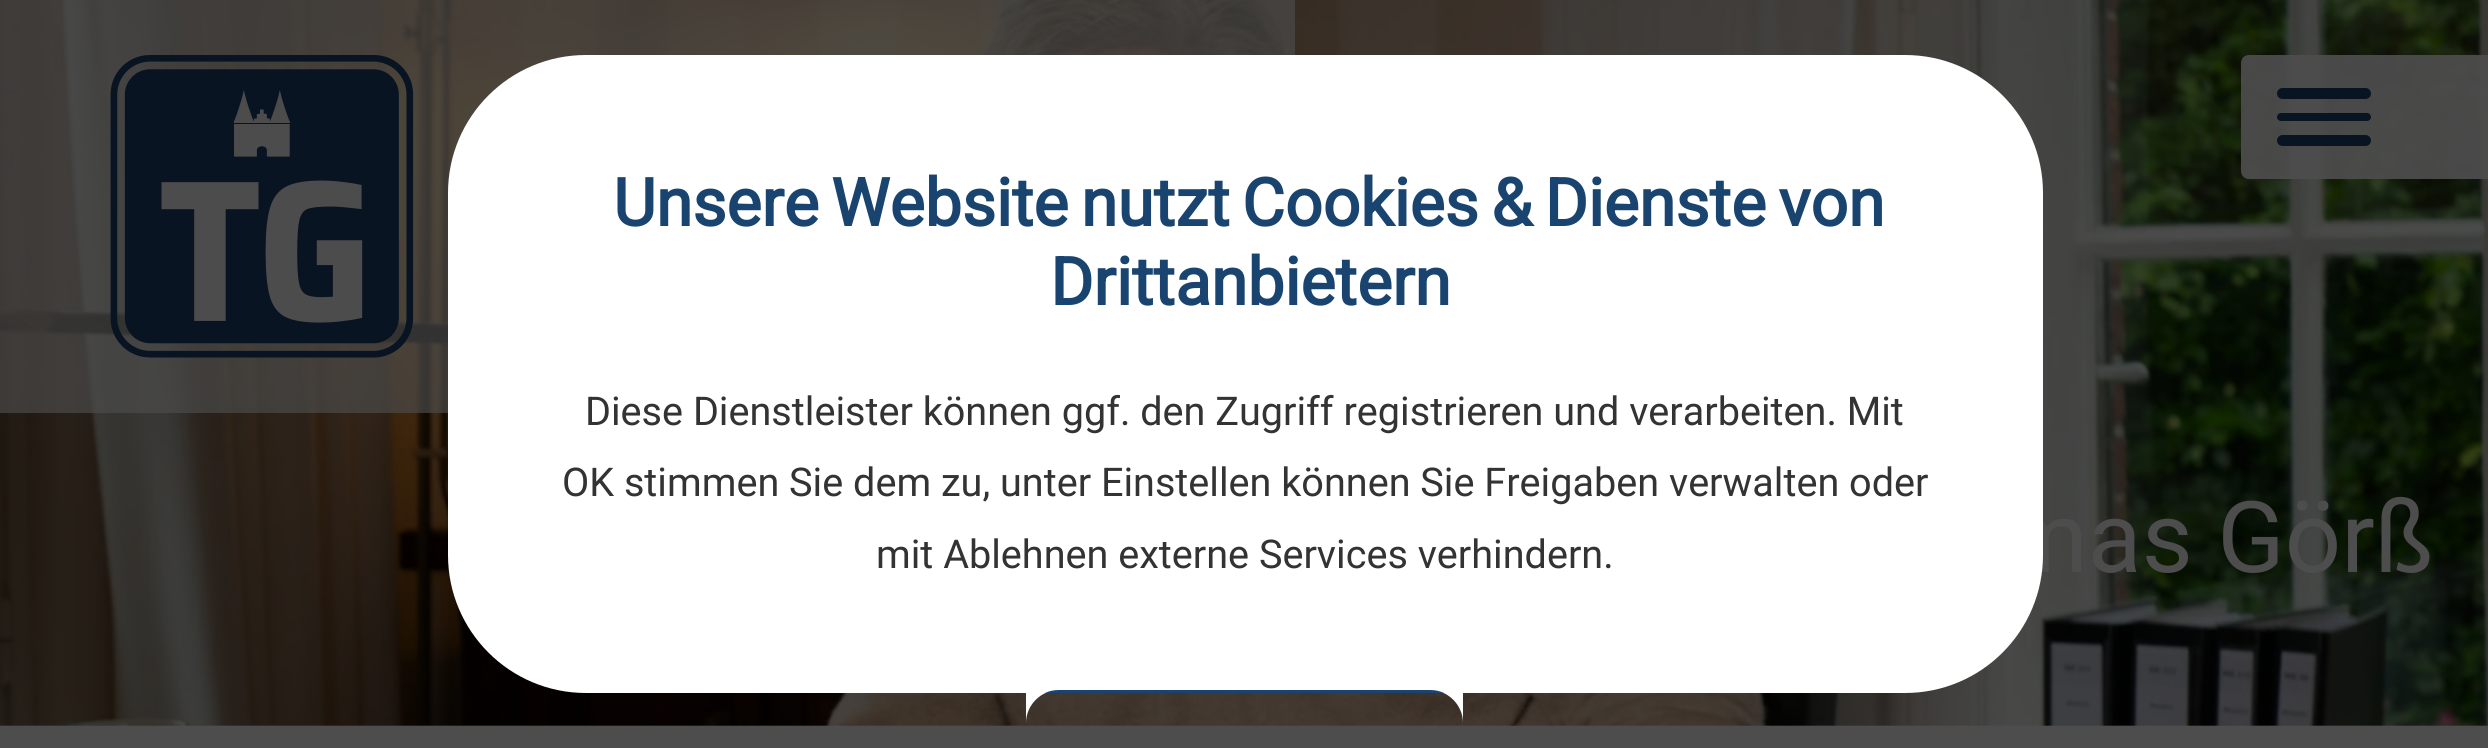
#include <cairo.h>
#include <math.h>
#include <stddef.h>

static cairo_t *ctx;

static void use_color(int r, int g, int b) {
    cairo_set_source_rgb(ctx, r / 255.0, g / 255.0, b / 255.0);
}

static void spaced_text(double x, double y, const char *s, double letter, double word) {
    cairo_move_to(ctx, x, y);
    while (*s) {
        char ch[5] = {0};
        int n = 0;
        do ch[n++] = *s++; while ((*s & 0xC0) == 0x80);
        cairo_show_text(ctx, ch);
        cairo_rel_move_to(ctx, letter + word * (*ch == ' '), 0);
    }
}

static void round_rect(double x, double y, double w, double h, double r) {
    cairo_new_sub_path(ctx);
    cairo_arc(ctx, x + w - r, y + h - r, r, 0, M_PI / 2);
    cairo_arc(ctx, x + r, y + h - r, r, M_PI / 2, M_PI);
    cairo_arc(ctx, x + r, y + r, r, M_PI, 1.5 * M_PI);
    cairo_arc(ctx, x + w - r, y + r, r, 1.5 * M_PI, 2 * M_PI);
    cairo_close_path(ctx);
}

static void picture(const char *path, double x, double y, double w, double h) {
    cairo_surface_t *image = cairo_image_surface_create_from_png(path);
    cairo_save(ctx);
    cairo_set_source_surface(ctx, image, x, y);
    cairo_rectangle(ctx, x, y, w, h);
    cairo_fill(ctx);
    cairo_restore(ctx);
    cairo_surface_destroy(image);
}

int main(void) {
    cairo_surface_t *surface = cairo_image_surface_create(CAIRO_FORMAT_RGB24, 2488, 748);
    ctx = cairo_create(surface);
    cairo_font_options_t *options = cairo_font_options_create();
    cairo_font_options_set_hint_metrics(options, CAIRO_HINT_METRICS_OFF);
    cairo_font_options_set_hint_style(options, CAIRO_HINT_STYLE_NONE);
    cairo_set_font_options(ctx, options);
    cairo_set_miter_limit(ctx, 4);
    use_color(77, 77, 77);
    cairo_paint(ctx);
    picture("img2.png", 0, 0, 2488, 726);
    cairo_set_source_rgba(ctx, 0.302, 0.302, 0.302, 0.65);
    cairo_rectangle(ctx, 0, 0, 1295, 413);
    cairo_fill(ctx);
    picture("img1.png", 110, 55, 304, 303);
    cairo_set_source_rgba(ctx, 0.302, 0.302, 0.302, 0.92);
    cairo_new_path(ctx);
    cairo_move_to(ctx, 2249, 55);
    cairo_line_to(ctx, 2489, 55);
    cairo_line_to(ctx, 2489, 179);
    cairo_line_to(ctx, 2249, 179);
    cairo_curve_to(ctx, 2244.5, 179, 2241, 175.5, 2241, 171);
    cairo_line_to(ctx, 2241, 63);
    cairo_curve_to(ctx, 2241, 58.5, 2244.5, 55, 2249, 55);
    cairo_close_path(ctx);
    cairo_fill(ctx);
    use_color(8, 20, 34);
    round_rect(2277, 113, 94, 8, 4);
    cairo_fill(ctx);
    round_rect(2277, 88, 94, 11, 5.5);
    cairo_fill(ctx);
    round_rect(2277, 135, 94, 11, 5.5);
    cairo_fill(ctx);
    cairo_select_font_face(ctx, "Roboto", CAIRO_FONT_SLANT_NORMAL, CAIRO_FONT_WEIGHT_NORMAL);
    cairo_set_font_size(ctx, 99);
    use_color(77, 77, 77);
    cairo_move_to(ctx, 2001, 572);
    cairo_show_text(ctx, "mas Görß");
    use_color(255, 255, 255);
    round_rect(448, 55, 1595, 638, 138);
    cairo_fill(ctx);
    cairo_select_font_face(ctx, "Roboto", CAIRO_FONT_SLANT_NORMAL, CAIRO_FONT_WEIGHT_BOLD);
    cairo_set_font_size(ctx, 66);
    use_color(26, 68, 112);
    spaced_text(613, 226, "Unsere Website nutzt Cookies & Dienste von", 0, -4);
    cairo_move_to(ctx, 1050, 305);
    cairo_show_text(ctx, "Drittanbietern");
    cairo_select_font_face(ctx, "Roboto", CAIRO_FONT_SLANT_NORMAL, CAIRO_FONT_WEIGHT_NORMAL);
    cairo_set_font_size(ctx, 39.6);
    use_color(51, 51, 51);
    cairo_move_to(ctx, 585, 425);
    cairo_show_text(ctx, "Diese Dienstleister können ggf. den Zugriff registrieren und verarbeiten. Mit");
    cairo_move_to(ctx, 562, 496);
    cairo_show_text(ctx, "OK stimmen Sie dem zu, unter Einstellen können Sie Freigaben verwalten oder");
    cairo_move_to(ctx, 876, 568);
    cairo_show_text(ctx, "mit Ablehnen externe Services verhindern.");
    use_color(255, 255, 255);
    cairo_new_path(ctx);
    cairo_move_to(ctx, 1059, 690);
    cairo_line_to(ctx, 1430, 690);
    cairo_curve_to(ctx, 1448, 690, 1463, 705, 1463, 723);
    cairo_line_to(ctx, 1463, 693);
    cairo_line_to(ctx, 1026, 693);
    cairo_line_to(ctx, 1026, 723);
    cairo_curve_to(ctx, 1026, 705, 1041, 690, 1059, 690);
    cairo_close_path(ctx);
    cairo_fill(ctx);
    use_color(26, 68, 112);
    cairo_new_path(ctx);
    cairo_move_to(ctx, 1059, 690);
    cairo_line_to(ctx, 1430, 690);
    cairo_curve_to(ctx, 1435, 690, 1440, 691, 1444, 693);
    cairo_line_to(ctx, 1045, 693);
    cairo_curve_to(ctx, 1049, 691, 1054, 690, 1059, 690);
    cairo_close_path(ctx);
    cairo_fill(ctx);
    cairo_surface_write_to_png(surface, "result.png");
    cairo_font_options_destroy(options);
    cairo_destroy(ctx);
    cairo_surface_destroy(surface);
    return 0;
}
